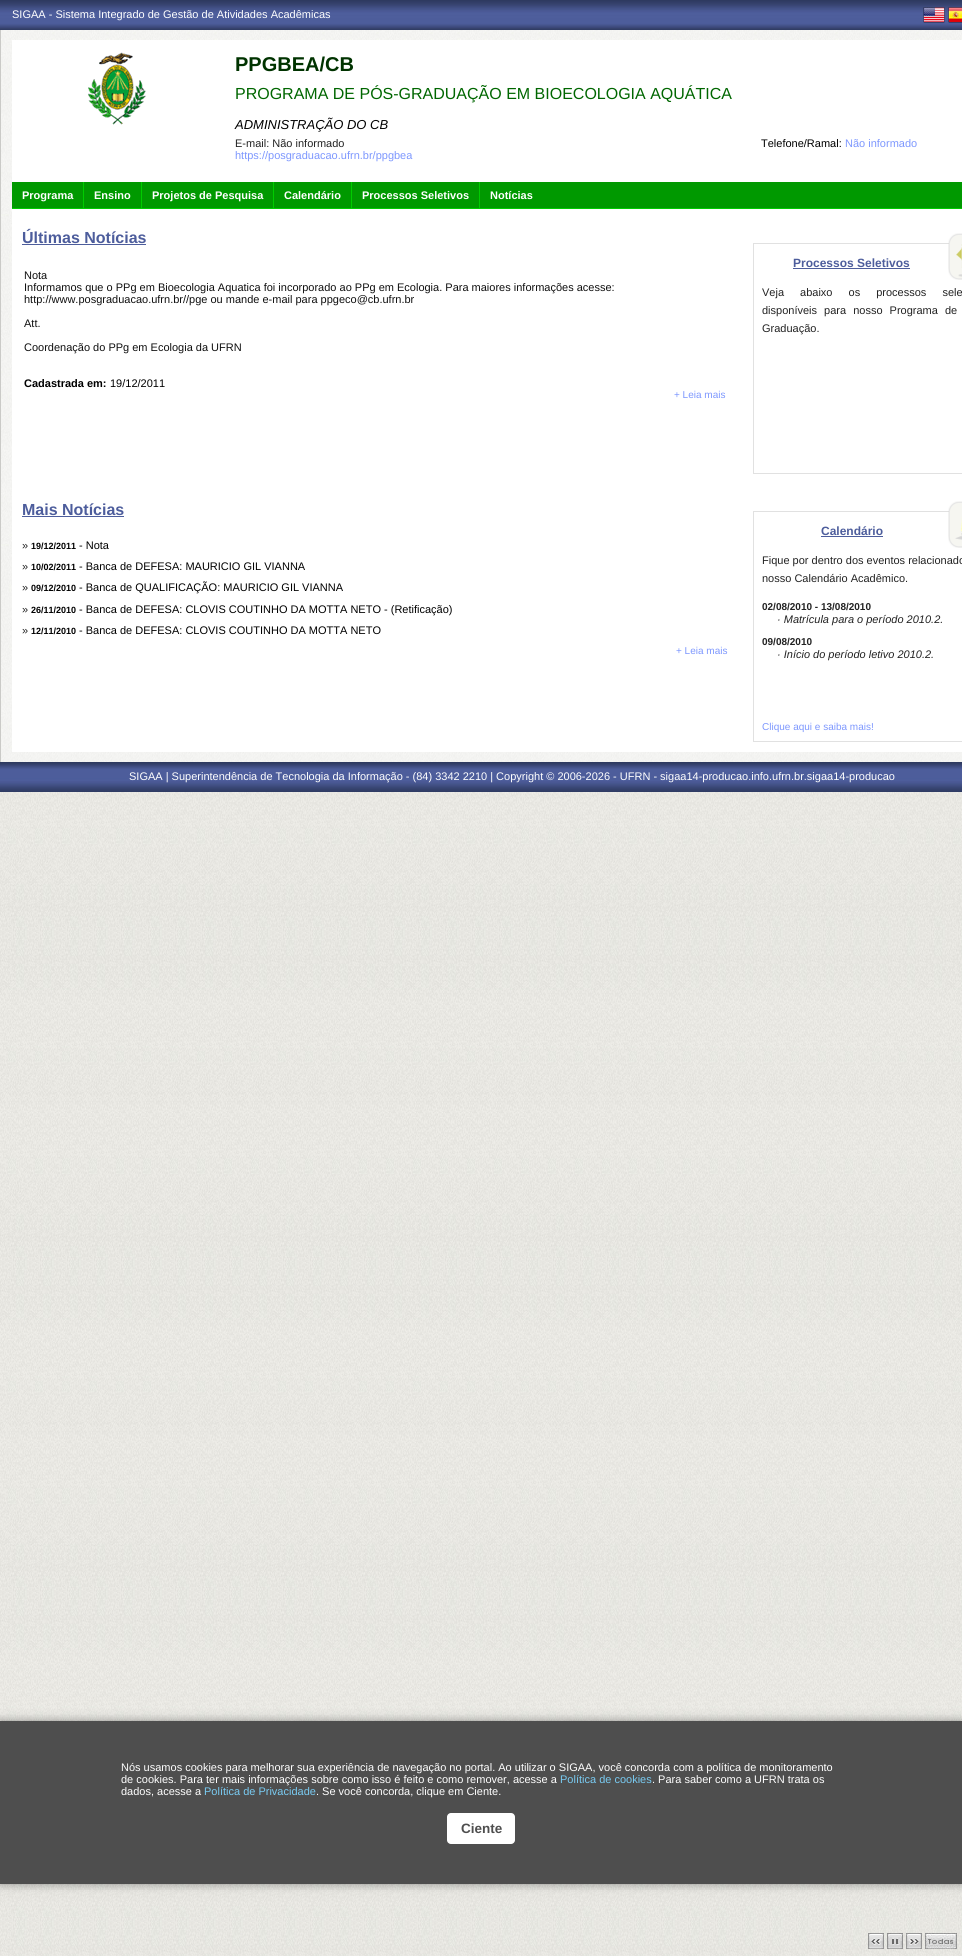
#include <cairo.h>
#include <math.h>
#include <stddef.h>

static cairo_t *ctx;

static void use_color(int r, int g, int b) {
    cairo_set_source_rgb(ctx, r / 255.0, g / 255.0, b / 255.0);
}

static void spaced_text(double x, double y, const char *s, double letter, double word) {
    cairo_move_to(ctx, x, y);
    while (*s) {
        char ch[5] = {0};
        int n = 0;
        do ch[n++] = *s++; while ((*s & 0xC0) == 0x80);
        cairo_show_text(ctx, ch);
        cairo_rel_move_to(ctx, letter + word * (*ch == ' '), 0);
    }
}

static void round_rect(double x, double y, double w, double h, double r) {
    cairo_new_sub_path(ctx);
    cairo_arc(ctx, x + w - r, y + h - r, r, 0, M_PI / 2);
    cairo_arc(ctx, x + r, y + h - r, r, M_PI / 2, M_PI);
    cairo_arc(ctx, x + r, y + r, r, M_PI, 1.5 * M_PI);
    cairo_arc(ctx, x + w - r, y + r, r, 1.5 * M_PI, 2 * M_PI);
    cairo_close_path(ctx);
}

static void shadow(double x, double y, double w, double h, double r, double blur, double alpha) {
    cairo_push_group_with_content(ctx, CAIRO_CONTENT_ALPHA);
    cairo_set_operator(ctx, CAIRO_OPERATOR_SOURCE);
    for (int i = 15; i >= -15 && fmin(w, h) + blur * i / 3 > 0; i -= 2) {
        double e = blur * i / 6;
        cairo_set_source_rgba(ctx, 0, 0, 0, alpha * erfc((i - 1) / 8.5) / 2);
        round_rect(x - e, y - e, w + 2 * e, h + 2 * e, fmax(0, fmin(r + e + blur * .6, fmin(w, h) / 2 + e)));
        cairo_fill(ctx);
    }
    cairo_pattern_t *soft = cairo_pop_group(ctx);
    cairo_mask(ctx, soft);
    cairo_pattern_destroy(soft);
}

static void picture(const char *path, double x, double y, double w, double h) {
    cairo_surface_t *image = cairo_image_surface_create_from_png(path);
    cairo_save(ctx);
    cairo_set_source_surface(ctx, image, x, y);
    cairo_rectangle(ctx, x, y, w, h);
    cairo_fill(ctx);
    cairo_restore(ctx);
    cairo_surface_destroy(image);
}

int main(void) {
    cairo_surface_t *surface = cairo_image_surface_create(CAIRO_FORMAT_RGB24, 962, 1956);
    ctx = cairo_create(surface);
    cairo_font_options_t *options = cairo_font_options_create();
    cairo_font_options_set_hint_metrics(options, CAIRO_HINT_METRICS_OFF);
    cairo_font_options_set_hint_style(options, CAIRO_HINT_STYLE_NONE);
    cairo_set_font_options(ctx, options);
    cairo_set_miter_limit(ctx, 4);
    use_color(255, 255, 255);
    cairo_paint(ctx);
    picture("img1.png", 0, 792, 962, 1164);
    picture("img2.png", 0, 0, 962, 30);
    picture("img3.png", 0, 762, 962, 30);
    cairo_select_font_face(ctx, "Liberation Sans", CAIRO_FONT_SLANT_NORMAL, CAIRO_FONT_WEIGHT_NORMAL);
    cairo_set_font_size(ctx, 11);
    use_color(255, 255, 255);
    cairo_move_to(ctx, 12, 18);
    cairo_show_text(ctx, "SIGAA - Sistema Integrado de Gestão de Atividades Acadêmicas");
    picture("img4.png", 923, 7, 22, 16);
    picture("img5.png", 948, 7, 14, 16);
    picture("img6.png", 1, 30, 961, 732);
    use_color(202, 202, 199);
    cairo_rectangle(ctx, 0, 30, 1, 732);
    cairo_fill(ctx);
    use_color(255, 255, 255);
    cairo_rectangle(ctx, 12, 40, 950, 712);
    cairo_fill(ctx);
    picture("img7.png", 88, 52, 58, 73);
    cairo_select_font_face(ctx, "Liberation Sans", CAIRO_FONT_SLANT_NORMAL, CAIRO_FONT_WEIGHT_BOLD);
    cairo_set_font_size(ctx, 20);
    use_color(0, 51, 0);
    cairo_move_to(ctx, 235, 71);
    cairo_show_text(ctx, "PPGBEA/CB");
    cairo_select_font_face(ctx, "Liberation Sans", CAIRO_FONT_SLANT_NORMAL, CAIRO_FONT_WEIGHT_NORMAL);
    cairo_set_font_size(ctx, 16);
    use_color(0, 102, 0);
    cairo_move_to(ctx, 235, 99);
    cairo_show_text(ctx, "PROGRAMA DE PÓS-GRADUAÇÃO EM BIOECOLOGIA AQUÁTICA");
    cairo_select_font_face(ctx, "Liberation Sans", CAIRO_FONT_SLANT_ITALIC, CAIRO_FONT_WEIGHT_NORMAL);
    cairo_set_font_size(ctx, 13);
    use_color(0, 0, 0);
    cairo_move_to(ctx, 235, 129);
    cairo_show_text(ctx, "ADMINISTRAÇÃO DO CB");
    cairo_select_font_face(ctx, "Liberation Sans", CAIRO_FONT_SLANT_NORMAL, CAIRO_FONT_WEIGHT_NORMAL);
    cairo_set_font_size(ctx, 11);
    use_color(34, 34, 34);
    cairo_move_to(ctx, 235, 147);
    cairo_show_text(ctx, "E-mail: Não informado");
    use_color(0, 0, 0);
    cairo_move_to(ctx, 761, 147);
    cairo_show_text(ctx, "Telefone/Ramal:");
    use_color(125, 151, 254);
    cairo_move_to(ctx, 845, 147);
    cairo_show_text(ctx, "Não informado");
    cairo_move_to(ctx, 235, 159);
    cairo_show_text(ctx, "https://posgraduacao.ufrn.br/ppgbea");
    use_color(0, 153, 0);
    cairo_rectangle(ctx, 12, 182, 950, 26);
    cairo_fill(ctx);
    use_color(0, 204, 0);
    cairo_rectangle(ctx, 12, 208, 950, 1);
    cairo_fill(ctx);
    cairo_select_font_face(ctx, "Liberation Sans", CAIRO_FONT_SLANT_NORMAL, CAIRO_FONT_WEIGHT_BOLD);
    use_color(255, 255, 255);
    cairo_move_to(ctx, 22, 199);
    cairo_show_text(ctx, "Programa");
    use_color(0, 204, 0);
    cairo_rectangle(ctx, 83, 182, 1, 27);
    cairo_fill(ctx);
    use_color(255, 255, 255);
    cairo_move_to(ctx, 94, 199);
    cairo_show_text(ctx, "Ensino");
    use_color(0, 204, 0);
    cairo_rectangle(ctx, 141, 182, 1, 27);
    cairo_fill(ctx);
    use_color(255, 255, 255);
    cairo_move_to(ctx, 152, 199);
    cairo_show_text(ctx, "Projetos de Pesquisa");
    use_color(0, 204, 0);
    cairo_rectangle(ctx, 273, 182, 1, 27);
    cairo_fill(ctx);
    use_color(255, 255, 255);
    cairo_move_to(ctx, 284, 199);
    cairo_show_text(ctx, "Calendário");
    use_color(0, 204, 0);
    cairo_rectangle(ctx, 351, 182, 1, 27);
    cairo_fill(ctx);
    use_color(255, 255, 255);
    cairo_move_to(ctx, 362, 199);
    cairo_show_text(ctx, "Processos Seletivos");
    use_color(0, 204, 0);
    cairo_rectangle(ctx, 479, 182, 1, 27);
    cairo_fill(ctx);
    use_color(255, 255, 255);
    cairo_move_to(ctx, 490, 199);
    cairo_show_text(ctx, "Notícias");
    cairo_set_font_size(ctx, 16);
    use_color(77, 93, 156);
    cairo_move_to(ctx, 22, 243);
    cairo_show_text(ctx, "Últimas Notícias");
    cairo_rectangle(ctx, 22, 244, 124, 1);
    cairo_fill(ctx);
    cairo_select_font_face(ctx, "Liberation Sans", CAIRO_FONT_SLANT_NORMAL, CAIRO_FONT_WEIGHT_NORMAL);
    cairo_set_font_size(ctx, 11);
    use_color(15, 15, 15);
    cairo_move_to(ctx, 24, 279);
    cairo_show_text(ctx, "Nota");
    cairo_move_to(ctx, 24, 291);
    cairo_show_text(ctx, "Informamos que o PPg em Bioecologia Aquatica foi incorporado ao PPg em Ecologia. Para maiores informações acesse:");
    cairo_move_to(ctx, 24, 303);
    cairo_show_text(ctx, "http://www.posgraduacao.ufrn.br//pge ou mande e-mail para ppgeco@cb.ufrn.br");
    cairo_move_to(ctx, 24, 327);
    cairo_show_text(ctx, "Att.");
    cairo_move_to(ctx, 24, 351);
    cairo_show_text(ctx, "Coordenação do PPg em Ecologia da UFRN");
    cairo_select_font_face(ctx, "Liberation Sans", CAIRO_FONT_SLANT_NORMAL, CAIRO_FONT_WEIGHT_BOLD);
    use_color(0, 0, 0);
    cairo_move_to(ctx, 24, 387);
    cairo_show_text(ctx, "Cadastrada em:");
    cairo_select_font_face(ctx, "Liberation Sans", CAIRO_FONT_SLANT_NORMAL, CAIRO_FONT_WEIGHT_NORMAL);
    cairo_move_to(ctx, 110, 387);
    cairo_show_text(ctx, "19/12/2011");
    cairo_set_font_size(ctx, 10);
    use_color(125, 151, 254);
    cairo_move_to(ctx, 674, 398);
    cairo_show_text(ctx, "+ Leia mais");
    picture("img8.png", 868, 1933, 16, 16);
    picture("img9.png", 887, 1933, 16, 16);
    picture("img10.png", 906, 1933, 16, 16);
    picture("img11.png", 925, 1933, 32, 16);
    cairo_select_font_face(ctx, "Liberation Sans", CAIRO_FONT_SLANT_NORMAL, CAIRO_FONT_WEIGHT_BOLD);
    cairo_set_font_size(ctx, 16);
    use_color(77, 93, 156);
    cairo_move_to(ctx, 22, 515);
    cairo_show_text(ctx, "Mais Notícias");
    cairo_rectangle(ctx, 22, 516, 102, 1);
    cairo_fill(ctx);
    cairo_select_font_face(ctx, "Liberation Sans", CAIRO_FONT_SLANT_NORMAL, CAIRO_FONT_WEIGHT_NORMAL);
    cairo_set_font_size(ctx, 11);
    use_color(34, 34, 34);
    cairo_move_to(ctx, 22, 549);
    cairo_show_text(ctx, "»");
    cairo_select_font_face(ctx, "Liberation Sans", CAIRO_FONT_SLANT_NORMAL, CAIRO_FONT_WEIGHT_BOLD);
    cairo_set_font_size(ctx, 9);
    use_color(0, 0, 0);
    cairo_move_to(ctx, 31, 549);
    cairo_show_text(ctx, "19/12/2011");
    cairo_select_font_face(ctx, "Liberation Sans", CAIRO_FONT_SLANT_NORMAL, CAIRO_FONT_WEIGHT_NORMAL);
    cairo_set_font_size(ctx, 11);
    cairo_move_to(ctx, 79, 549);
    cairo_show_text(ctx, "- Nota");
    use_color(34, 34, 34);
    cairo_move_to(ctx, 22, 570);
    cairo_show_text(ctx, "»");
    cairo_select_font_face(ctx, "Liberation Sans", CAIRO_FONT_SLANT_NORMAL, CAIRO_FONT_WEIGHT_BOLD);
    cairo_set_font_size(ctx, 9);
    use_color(0, 0, 0);
    cairo_move_to(ctx, 31, 570);
    cairo_show_text(ctx, "10/02/2011");
    cairo_select_font_face(ctx, "Liberation Sans", CAIRO_FONT_SLANT_NORMAL, CAIRO_FONT_WEIGHT_NORMAL);
    cairo_set_font_size(ctx, 11);
    cairo_move_to(ctx, 79, 570);
    cairo_show_text(ctx, "- Banca de DEFESA: MAURICIO GIL VIANNA");
    use_color(34, 34, 34);
    cairo_move_to(ctx, 22, 591);
    cairo_show_text(ctx, "»");
    cairo_select_font_face(ctx, "Liberation Sans", CAIRO_FONT_SLANT_NORMAL, CAIRO_FONT_WEIGHT_BOLD);
    cairo_set_font_size(ctx, 9);
    use_color(0, 0, 0);
    cairo_move_to(ctx, 31, 591);
    cairo_show_text(ctx, "09/12/2010");
    cairo_select_font_face(ctx, "Liberation Sans", CAIRO_FONT_SLANT_NORMAL, CAIRO_FONT_WEIGHT_NORMAL);
    cairo_set_font_size(ctx, 11);
    cairo_move_to(ctx, 79, 591);
    cairo_show_text(ctx, "- Banca de QUALIFICAÇÃO: MAURICIO GIL VIANNA");
    use_color(34, 34, 34);
    cairo_move_to(ctx, 22, 613);
    cairo_show_text(ctx, "»");
    cairo_select_font_face(ctx, "Liberation Sans", CAIRO_FONT_SLANT_NORMAL, CAIRO_FONT_WEIGHT_BOLD);
    cairo_set_font_size(ctx, 9);
    use_color(0, 0, 0);
    cairo_move_to(ctx, 31, 613);
    cairo_show_text(ctx, "26/11/2010");
    cairo_select_font_face(ctx, "Liberation Sans", CAIRO_FONT_SLANT_NORMAL, CAIRO_FONT_WEIGHT_NORMAL);
    cairo_set_font_size(ctx, 11);
    cairo_move_to(ctx, 79, 613);
    cairo_show_text(ctx, "- Banca de DEFESA: CLOVIS COUTINHO DA MOTTA NETO - (Retificação)");
    use_color(34, 34, 34);
    cairo_move_to(ctx, 22, 634);
    cairo_show_text(ctx, "»");
    cairo_select_font_face(ctx, "Liberation Sans", CAIRO_FONT_SLANT_NORMAL, CAIRO_FONT_WEIGHT_BOLD);
    cairo_set_font_size(ctx, 9);
    use_color(0, 0, 0);
    cairo_move_to(ctx, 31, 634);
    cairo_show_text(ctx, "12/11/2010");
    cairo_select_font_face(ctx, "Liberation Sans", CAIRO_FONT_SLANT_NORMAL, CAIRO_FONT_WEIGHT_NORMAL);
    cairo_set_font_size(ctx, 11);
    cairo_move_to(ctx, 79, 634);
    cairo_show_text(ctx, "- Banca de DEFESA: CLOVIS COUTINHO DA MOTTA NETO");
    cairo_set_font_size(ctx, 10);
    use_color(125, 151, 254);
    cairo_move_to(ctx, 676, 654);
    cairo_show_text(ctx, "+ Leia mais");
    cairo_rectangle(ctx, 753.5, 243.5, 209, 230);
    use_color(225, 225, 225);
    cairo_set_line_width(ctx, 1);
    cairo_stroke(ctx);
    picture("img12.png", 948, 233, 14, 47);
    cairo_select_font_face(ctx, "Liberation Sans", CAIRO_FONT_SLANT_NORMAL, CAIRO_FONT_WEIGHT_BOLD);
    cairo_set_font_size(ctx, 12);
    use_color(77, 93, 156);
    cairo_move_to(ctx, 793, 267);
    cairo_show_text(ctx, "Processos Seletivos");
    cairo_rectangle(ctx, 793, 268, 117, 1);
    cairo_fill(ctx);
    cairo_select_font_face(ctx, "Liberation Sans", CAIRO_FONT_SLANT_NORMAL, CAIRO_FONT_WEIGHT_NORMAL);
    cairo_set_font_size(ctx, 11);
    use_color(34, 34, 34);
    spaced_text(762, 296, "Veja abaixo os processos sele", 0, 13);
    spaced_text(762, 314, "disponíveis para nosso Programa de", 0, 4);
    cairo_move_to(ctx, 762, 332);
    cairo_show_text(ctx, "Graduação.");
    cairo_rectangle(ctx, 753.5, 511.5, 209, 230);
    use_color(225, 225, 225);
    cairo_stroke(ctx);
    picture("img13.png", 948, 501, 14, 47);
    cairo_select_font_face(ctx, "Liberation Sans", CAIRO_FONT_SLANT_NORMAL, CAIRO_FONT_WEIGHT_BOLD);
    cairo_set_font_size(ctx, 12);
    use_color(77, 93, 156);
    cairo_move_to(ctx, 821, 535);
    cairo_show_text(ctx, "Calendário");
    cairo_rectangle(ctx, 821, 536, 62, 1);
    cairo_fill(ctx);
    cairo_select_font_face(ctx, "Liberation Sans", CAIRO_FONT_SLANT_NORMAL, CAIRO_FONT_WEIGHT_NORMAL);
    cairo_set_font_size(ctx, 11);
    use_color(34, 34, 34);
    cairo_move_to(ctx, 762, 564);
    cairo_show_text(ctx, "Fique por dentro dos eventos relacionado");
    cairo_move_to(ctx, 762, 582);
    cairo_show_text(ctx, "nosso Calendário Acadêmico.");
    cairo_select_font_face(ctx, "Liberation Sans", CAIRO_FONT_SLANT_NORMAL, CAIRO_FONT_WEIGHT_BOLD);
    cairo_set_font_size(ctx, 10);
    cairo_move_to(ctx, 762, 610);
    cairo_show_text(ctx, "02/08/2010 - 13/08/2010");
    cairo_select_font_face(ctx, "Liberation Sans", CAIRO_FONT_SLANT_ITALIC, CAIRO_FONT_WEIGHT_NORMAL);
    cairo_set_font_size(ctx, 11);
    cairo_move_to(ctx, 777, 623);
    cairo_show_text(ctx, "· Matrícula para o período 2010.2.");
    cairo_select_font_face(ctx, "Liberation Sans", CAIRO_FONT_SLANT_NORMAL, CAIRO_FONT_WEIGHT_BOLD);
    cairo_set_font_size(ctx, 10);
    cairo_move_to(ctx, 762, 645);
    cairo_show_text(ctx, "09/08/2010");
    cairo_select_font_face(ctx, "Liberation Sans", CAIRO_FONT_SLANT_ITALIC, CAIRO_FONT_WEIGHT_NORMAL);
    cairo_set_font_size(ctx, 11);
    cairo_move_to(ctx, 777, 658);
    cairo_show_text(ctx, "· Início do período letivo 2010.2.");
    cairo_select_font_face(ctx, "Liberation Sans", CAIRO_FONT_SLANT_NORMAL, CAIRO_FONT_WEIGHT_NORMAL);
    cairo_set_font_size(ctx, 10);
    use_color(125, 151, 254);
    cairo_move_to(ctx, 762, 730);
    cairo_show_text(ctx, "Clique aqui e saiba mais!");
    cairo_set_font_size(ctx, 11);
    use_color(255, 255, 255);
    cairo_move_to(ctx, 129, 780);
    cairo_show_text(ctx, "SIGAA | Superintendência de Tecnologia da Informação - (84) 3342 2210 | Copyright © 2006-2026 - UFRN - sigaa14-producao.info.ufrn.br.sigaa14-producao");
    use_color(0, 0, 0);
    shadow(0, 1721, 962, 163, 0, 5, 0.4);
    use_color(78, 78, 78);
    cairo_rectangle(ctx, 0, 1721, 962, 163);
    cairo_fill(ctx);
    use_color(255, 255, 255);
    cairo_move_to(ctx, 121, 1771);
    cairo_show_text(ctx, "Nós usamos cookies para melhorar sua experiência de navegação no portal. Ao utilizar o SIGAA, você concorda com a política de monitoramento");
    cairo_move_to(ctx, 121, 1783);
    cairo_show_text(ctx, "de cookies. Para ter mais informações sobre como isso é feito e como remover, acesse a");
    use_color(121, 203, 242);
    cairo_move_to(ctx, 560, 1783);
    cairo_show_text(ctx, "Política de cookies");
    use_color(255, 255, 255);
    cairo_move_to(ctx, 652, 1783);
    cairo_show_text(ctx, ". Para saber como a UFRN trata os");
    cairo_move_to(ctx, 121, 1795);
    cairo_show_text(ctx, "dados, acesse a");
    use_color(121, 203, 242);
    cairo_move_to(ctx, 204, 1795);
    cairo_show_text(ctx, "Política de Privacidade");
    use_color(255, 255, 255);
    cairo_move_to(ctx, 316, 1795);
    cairo_show_text(ctx, ". Se você concorda, clique em Ciente.");
    round_rect(447, 1813, 68, 31, 4);
    cairo_fill(ctx);
    cairo_select_font_face(ctx, "Liberation Sans", CAIRO_FONT_SLANT_NORMAL, CAIRO_FONT_WEIGHT_BOLD);
    cairo_set_font_size(ctx, 13.5);
    use_color(78, 78, 78);
    cairo_move_to(ctx, 461, 1833);
    cairo_show_text(ctx, "Ciente");
    cairo_surface_write_to_png(surface, "result.png");
    cairo_font_options_destroy(options);
    cairo_destroy(ctx);
    cairo_surface_destroy(surface);
    return 0;
}
